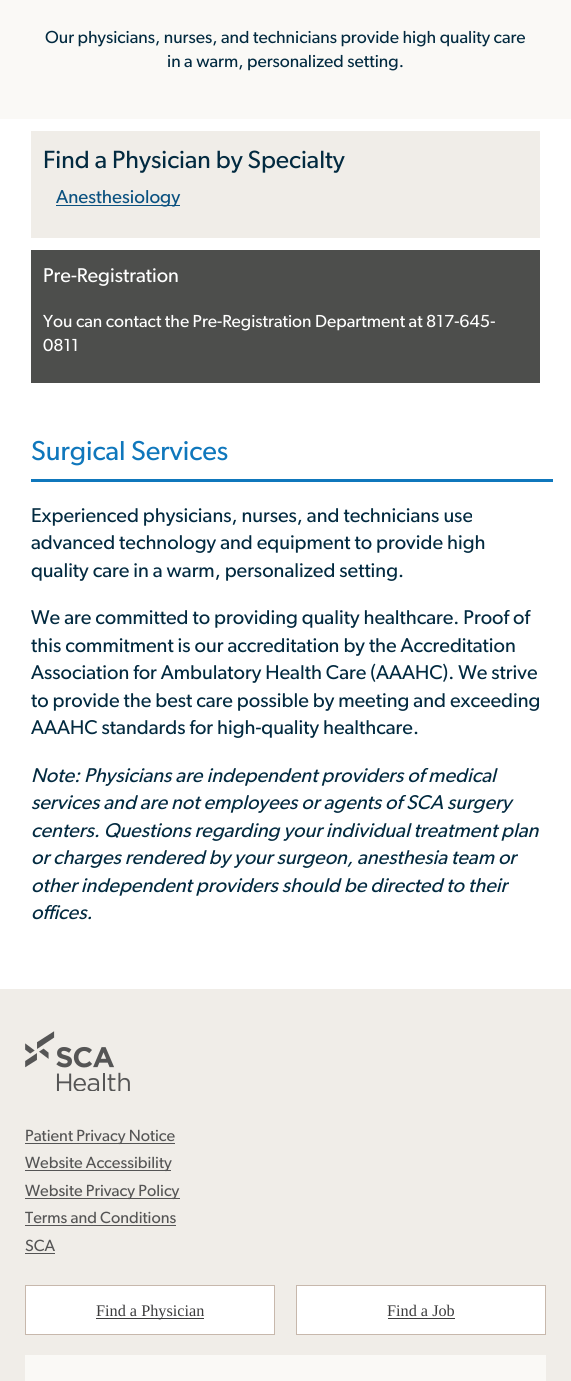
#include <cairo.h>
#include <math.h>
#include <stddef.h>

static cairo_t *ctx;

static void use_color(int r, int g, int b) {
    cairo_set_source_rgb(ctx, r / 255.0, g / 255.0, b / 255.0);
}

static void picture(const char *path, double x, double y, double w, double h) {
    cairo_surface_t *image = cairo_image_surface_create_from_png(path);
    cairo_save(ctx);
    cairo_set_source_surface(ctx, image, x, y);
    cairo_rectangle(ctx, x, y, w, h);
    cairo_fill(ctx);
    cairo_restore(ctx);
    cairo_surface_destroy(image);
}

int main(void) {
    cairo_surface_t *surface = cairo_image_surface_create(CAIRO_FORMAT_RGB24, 571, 1381);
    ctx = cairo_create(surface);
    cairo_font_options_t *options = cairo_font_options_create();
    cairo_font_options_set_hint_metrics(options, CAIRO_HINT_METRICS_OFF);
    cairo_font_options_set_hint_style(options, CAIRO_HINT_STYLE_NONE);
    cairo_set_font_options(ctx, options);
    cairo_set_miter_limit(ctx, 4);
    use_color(255, 255, 255);
    cairo_paint(ctx);
    use_color(250, 249, 246);
    cairo_rectangle(ctx, 0, 0, 571, 119);
    cairo_fill(ctx);
    cairo_select_font_face(ctx, "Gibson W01", CAIRO_FONT_SLANT_NORMAL, CAIRO_FONT_WEIGHT_NORMAL);
    cairo_set_font_size(ctx, 17.5);
    use_color(2, 42, 64);
    cairo_move_to(ctx, 45, 43);
    cairo_show_text(ctx, "Our physicians, nurses, and technicians provide high quality care");
    cairo_move_to(ctx, 167, 67);
    cairo_show_text(ctx, "in a warm, personalized setting.");
    use_color(240, 237, 232);
    cairo_rectangle(ctx, 31, 131, 509, 107);
    cairo_fill(ctx);
    cairo_set_font_size(ctx, 25);
    use_color(2, 42, 64);
    cairo_move_to(ctx, 43, 168);
    cairo_show_text(ctx, "Find a Physician by Specialty");
    use_color(10, 81, 128);
    cairo_rectangle(ctx, 56, 205, 124, 1);
    cairo_fill(ctx);
    cairo_set_font_size(ctx, 18.75);
    cairo_move_to(ctx, 56, 203);
    cairo_show_text(ctx, "Anesthesiology");
    use_color(77, 78, 76);
    cairo_rectangle(ctx, 31, 250, 509, 133);
    cairo_fill(ctx);
    cairo_set_font_size(ctx, 20);
    use_color(255, 255, 255);
    cairo_move_to(ctx, 43, 282);
    cairo_show_text(ctx, "Pre-Registration");
    cairo_set_font_size(ctx, 17.5);
    cairo_move_to(ctx, 43, 327);
    cairo_show_text(ctx, "You can contact the Pre-Registration Department at 817-645-");
    cairo_move_to(ctx, 43, 351);
    cairo_show_text(ctx, "0811");
    use_color(15, 119, 188);
    cairo_rectangle(ctx, 31, 479, 522, 3);
    cairo_fill(ctx);
    cairo_set_font_size(ctx, 27.5);
    cairo_move_to(ctx, 31, 460);
    cairo_show_text(ctx, "Surgical Services");
    cairo_set_font_size(ctx, 20);
    use_color(2, 42, 64);
    cairo_move_to(ctx, 31, 522);
    cairo_show_text(ctx, "Experienced physicians, nurses, and technicians use");
    cairo_move_to(ctx, 31, 549);
    cairo_show_text(ctx, "advanced technology and equipment to provide high");
    cairo_move_to(ctx, 31, 577);
    cairo_show_text(ctx, "quality care in a warm, personalized setting.");
    cairo_move_to(ctx, 31, 624);
    cairo_show_text(ctx, "We are committed to providing quality healthcare. Proof of");
    cairo_move_to(ctx, 31, 652);
    cairo_show_text(ctx, "this commitment is our accreditation by the Accreditation");
    cairo_move_to(ctx, 31, 679);
    cairo_show_text(ctx, "Association for Ambulatory Health Care (AAAHC). We strive");
    cairo_move_to(ctx, 31, 707);
    cairo_show_text(ctx, "to provide the best care possible by meeting and exceeding");
    cairo_move_to(ctx, 31, 734);
    cairo_show_text(ctx, "AAAHC standards for high-quality healthcare.");
    cairo_select_font_face(ctx, "Gibson W01", CAIRO_FONT_SLANT_ITALIC, CAIRO_FONT_WEIGHT_NORMAL);
    cairo_move_to(ctx, 31, 782);
    cairo_show_text(ctx, "Note: Physicians are independent providers of medical");
    cairo_move_to(ctx, 31, 809);
    cairo_show_text(ctx, "services and are not employees or agents of SCA surgery");
    cairo_move_to(ctx, 31, 837);
    cairo_show_text(ctx, "centers. Questions regarding your individual treatment plan");
    cairo_move_to(ctx, 31, 864);
    cairo_show_text(ctx, "or charges rendered by your surgeon, anesthesia team or");
    cairo_move_to(ctx, 31, 892);
    cairo_show_text(ctx, "other independent providers should be directed to their");
    cairo_move_to(ctx, 31, 919);
    cairo_show_text(ctx, "offices.");
    use_color(240, 237, 232);
    cairo_rectangle(ctx, 0, 989, 571, 392);
    cairo_fill(ctx);
    picture("img1.png", 25, 1031, 105, 60);
    use_color(85, 85, 85);
    cairo_rectangle(ctx, 25, 1143, 150, 1);
    cairo_fill(ctx);
    cairo_select_font_face(ctx, "Gibson W01", CAIRO_FONT_SLANT_NORMAL, CAIRO_FONT_WEIGHT_NORMAL);
    cairo_set_font_size(ctx, 16.25);
    cairo_move_to(ctx, 25, 1141);
    cairo_show_text(ctx, "Patient Privacy Notice");
    cairo_rectangle(ctx, 25, 1170, 146, 1);
    cairo_fill(ctx);
    cairo_move_to(ctx, 25, 1168);
    cairo_show_text(ctx, "Website Accessibility");
    cairo_rectangle(ctx, 25, 1198, 155, 1);
    cairo_fill(ctx);
    cairo_move_to(ctx, 25, 1196);
    cairo_show_text(ctx, "Website Privacy Policy");
    cairo_move_to(ctx, 25, 1223);
    cairo_show_text(ctx, "Terms and Conditions");
    cairo_rectangle(ctx, 25, 1225, 151, 1);
    cairo_fill(ctx);
    cairo_move_to(ctx, 25, 1251);
    cairo_show_text(ctx, "SCA");
    cairo_rectangle(ctx, 25, 1253, 30, 1);
    cairo_fill(ctx);
    use_color(255, 255, 255);
    cairo_rectangle(ctx, 25.5, 1285.5, 249, 49);
    cairo_fill_preserve(ctx);
    use_color(199, 184, 172);
    cairo_set_line_width(ctx, 1);
    cairo_stroke(ctx);
    use_color(60, 60, 61);
    cairo_rectangle(ctx, 96, 1318, 108, 1);
    cairo_fill(ctx);
    cairo_select_font_face(ctx, "Liberation Serif", CAIRO_FONT_SLANT_NORMAL, CAIRO_FONT_WEIGHT_NORMAL);
    cairo_move_to(ctx, 96, 1316);
    cairo_show_text(ctx, "Find a Physician");
    use_color(255, 255, 255);
    cairo_rectangle(ctx, 296.5, 1285.5, 249, 49);
    cairo_fill_preserve(ctx);
    use_color(199, 184, 172);
    cairo_stroke(ctx);
    use_color(60, 60, 61);
    cairo_move_to(ctx, 387, 1316);
    cairo_show_text(ctx, "Find a Job");
    cairo_rectangle(ctx, 388, 1318, 67, 1);
    cairo_fill(ctx);
    use_color(250, 249, 246);
    cairo_rectangle(ctx, 25, 1355, 521, 26);
    cairo_fill(ctx);
    cairo_surface_write_to_png(surface, "result.png");
    cairo_font_options_destroy(options);
    cairo_destroy(ctx);
    cairo_surface_destroy(surface);
    return 0;
}
